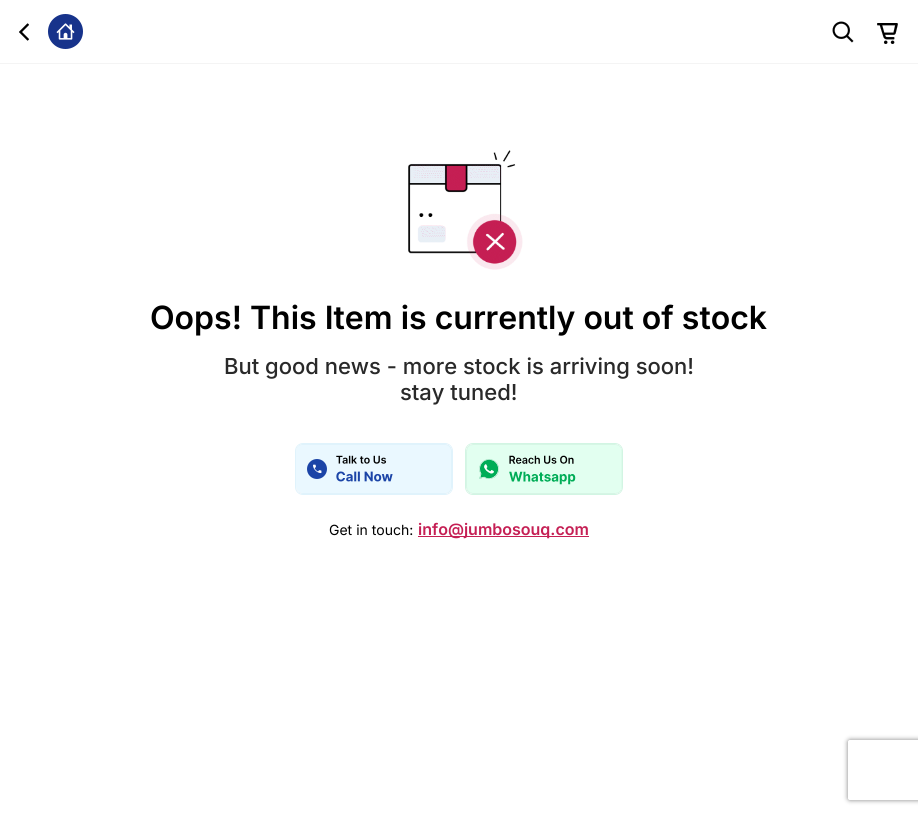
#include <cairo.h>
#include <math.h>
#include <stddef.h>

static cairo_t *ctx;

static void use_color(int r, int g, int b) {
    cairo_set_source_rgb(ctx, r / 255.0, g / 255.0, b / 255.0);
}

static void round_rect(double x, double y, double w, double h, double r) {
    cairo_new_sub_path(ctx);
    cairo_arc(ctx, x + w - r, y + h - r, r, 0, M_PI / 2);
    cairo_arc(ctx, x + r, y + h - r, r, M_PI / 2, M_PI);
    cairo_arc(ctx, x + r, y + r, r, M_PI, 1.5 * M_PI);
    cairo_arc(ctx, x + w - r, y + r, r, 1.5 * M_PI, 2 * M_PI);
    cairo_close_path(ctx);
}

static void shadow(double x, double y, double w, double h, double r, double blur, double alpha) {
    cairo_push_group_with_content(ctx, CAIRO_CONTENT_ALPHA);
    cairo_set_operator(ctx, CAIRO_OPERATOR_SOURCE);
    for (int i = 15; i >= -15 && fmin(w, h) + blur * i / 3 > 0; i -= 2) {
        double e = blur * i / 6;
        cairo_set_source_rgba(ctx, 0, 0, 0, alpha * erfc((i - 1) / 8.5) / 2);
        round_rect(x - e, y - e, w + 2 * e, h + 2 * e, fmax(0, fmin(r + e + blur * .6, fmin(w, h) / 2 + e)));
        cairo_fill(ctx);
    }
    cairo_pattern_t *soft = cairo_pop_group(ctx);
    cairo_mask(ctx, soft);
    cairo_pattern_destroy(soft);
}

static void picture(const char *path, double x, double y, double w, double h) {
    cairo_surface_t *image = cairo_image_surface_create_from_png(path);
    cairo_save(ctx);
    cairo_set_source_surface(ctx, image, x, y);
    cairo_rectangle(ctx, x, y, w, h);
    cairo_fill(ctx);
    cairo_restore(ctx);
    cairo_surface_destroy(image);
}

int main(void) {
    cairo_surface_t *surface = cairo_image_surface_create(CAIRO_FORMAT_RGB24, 918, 814);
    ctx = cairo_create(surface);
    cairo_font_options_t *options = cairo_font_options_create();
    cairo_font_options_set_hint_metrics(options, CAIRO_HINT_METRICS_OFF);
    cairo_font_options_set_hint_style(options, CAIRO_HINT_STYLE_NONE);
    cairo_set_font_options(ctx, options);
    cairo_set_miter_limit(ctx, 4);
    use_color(255, 255, 255);
    cairo_paint(ctx);
    use_color(244, 244, 244);
    cairo_rectangle(ctx, 0, 63, 918, 1);
    cairo_fill(ctx);
    picture("img1.png", 19, 23, 10, 18);
    use_color(23, 51, 139);
    cairo_arc(ctx, 65.5, 31.5, 17.5, 0, 2 * M_PI);
    cairo_fill(ctx);
    picture("img2.png", 56, 23, 19, 17);
    picture("img3.png", 832, 21, 22, 22);
    picture("img4.png", 877, 23, 21, 21);
    picture("img5.png", 384, 134, 150, 163);
    cairo_select_font_face(ctx, "Inter SemiBold", CAIRO_FONT_SLANT_NORMAL, CAIRO_FONT_WEIGHT_NORMAL);
    cairo_set_font_size(ctx, 32);
    use_color(0, 0, 0);
    cairo_move_to(ctx, 150, 329);
    cairo_show_text(ctx, "Oops! This Item is currently out of stock");
    cairo_select_font_face(ctx, "Inter Medium", CAIRO_FONT_SLANT_NORMAL, CAIRO_FONT_WEIGHT_NORMAL);
    cairo_set_font_size(ctx, 22);
    use_color(41, 41, 41);
    cairo_move_to(ctx, 224, 374);
    cairo_show_text(ctx, "But good news - more stock is arriving soon!");
    cairo_move_to(ctx, 400, 400);
    cairo_show_text(ctx, "stay tuned!");
    round_rect(295.5, 443.5, 157, 51, 7.5);
    use_color(224, 243, 252);
    cairo_set_line_width(ctx, 1);
    cairo_stroke(ctx);
    use_color(248, 248, 248);
    round_rect(296, 444, 156, 50, 7);
    cairo_fill(ctx);
    picture("img6.png", 296, 444, 156, 50);
    round_rect(465.5, 443.5, 157, 51, 7.5);
    use_color(210, 245, 227);
    cairo_stroke(ctx);
    use_color(248, 248, 248);
    round_rect(466, 444, 156, 50, 7);
    cairo_fill(ctx);
    picture("img7.png", 466, 444, 156, 50);
    cairo_select_font_face(ctx, "Inter", CAIRO_FONT_SLANT_NORMAL, CAIRO_FONT_WEIGHT_NORMAL);
    cairo_set_font_size(ctx, 14);
    use_color(0, 0, 0);
    cairo_move_to(ctx, 329, 535);
    cairo_show_text(ctx, "Get in touch:");
    use_color(197, 31, 84);
    cairo_rectangle(ctx, 418, 536, 171, 1);
    cairo_fill(ctx);
    cairo_select_font_face(ctx, "Inter SemiBold", CAIRO_FONT_SLANT_NORMAL, CAIRO_FONT_WEIGHT_NORMAL);
    cairo_set_font_size(ctx, 16);
    cairo_move_to(ctx, 418, 535);
    cairo_show_text(ctx, "info@jumbosouq.com");
    cairo_save(ctx);
    cairo_set_fill_rule(ctx, CAIRO_FILL_RULE_EVEN_ODD);
    cairo_new_path(ctx);
    cairo_move_to(ctx, 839, 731);
    cairo_line_to(ctx, 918, 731);
    cairo_line_to(ctx, 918, 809);
    cairo_line_to(ctx, 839, 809);
    cairo_close_path(ctx);
    cairo_move_to(ctx, 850, 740);
    cairo_line_to(ctx, 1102, 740);
    cairo_curve_to(ctx, 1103, 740, 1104, 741, 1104, 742);
    cairo_line_to(ctx, 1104, 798);
    cairo_curve_to(ctx, 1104, 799, 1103, 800, 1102, 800);
    cairo_line_to(ctx, 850, 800);
    cairo_curve_to(ctx, 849, 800, 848, 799, 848, 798);
    cairo_line_to(ctx, 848, 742);
    cairo_curve_to(ctx, 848, 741, 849, 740, 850, 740);
    cairo_close_path(ctx);
    cairo_clip(ctx);
    use_color(128, 128, 128);
    shadow(848, 740, 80, 60, 2, 2.5, 1);
    cairo_restore(ctx);
    cairo_surface_write_to_png(surface, "result.png");
    cairo_font_options_destroy(options);
    cairo_destroy(ctx);
    cairo_surface_destroy(surface);
    return 0;
}
